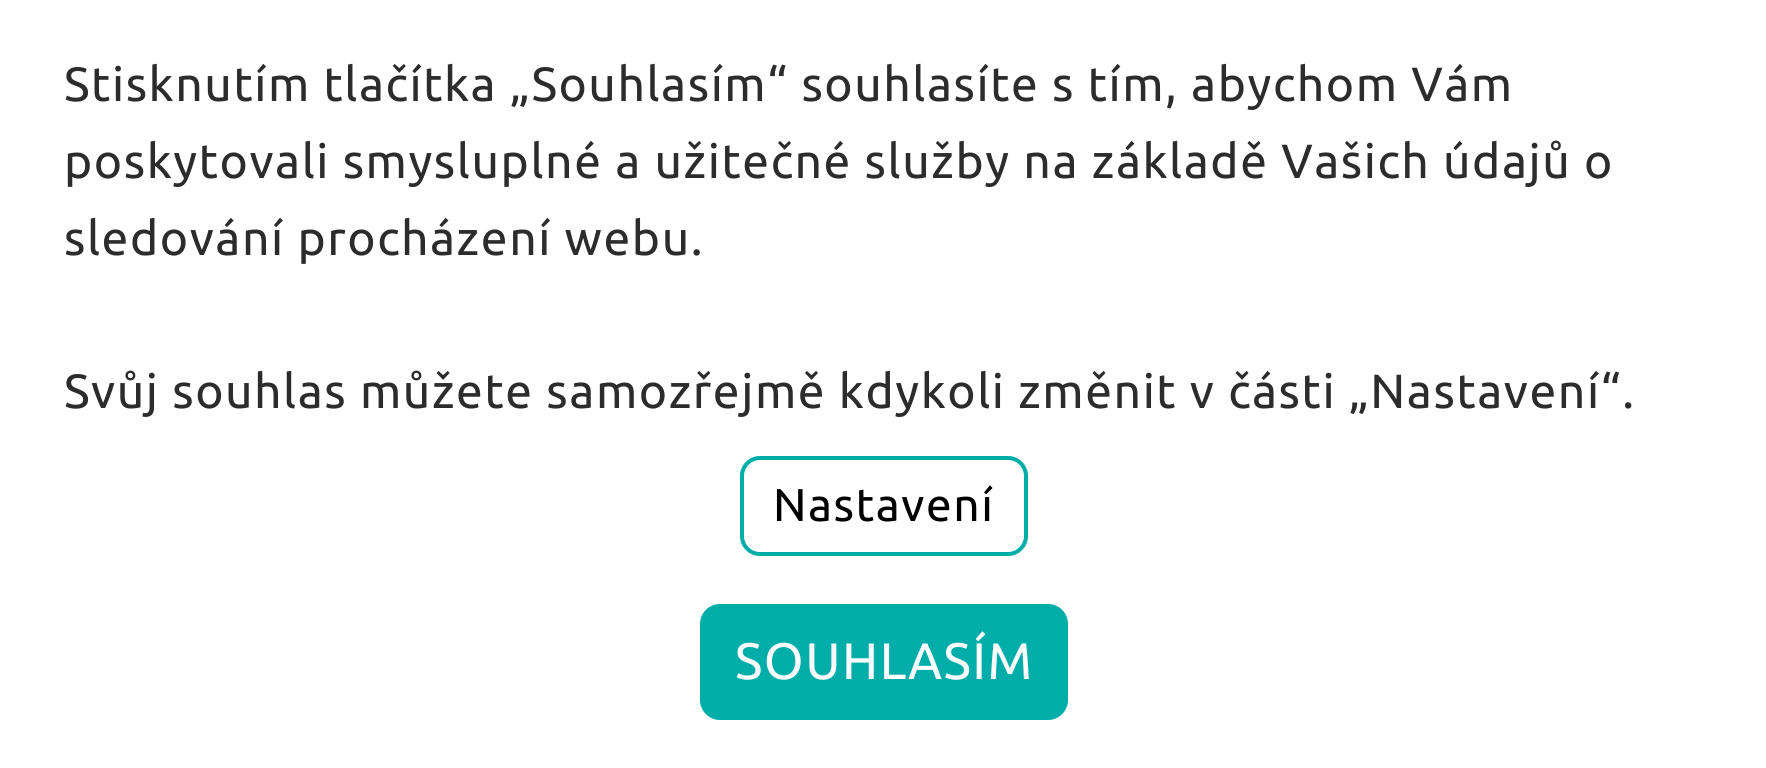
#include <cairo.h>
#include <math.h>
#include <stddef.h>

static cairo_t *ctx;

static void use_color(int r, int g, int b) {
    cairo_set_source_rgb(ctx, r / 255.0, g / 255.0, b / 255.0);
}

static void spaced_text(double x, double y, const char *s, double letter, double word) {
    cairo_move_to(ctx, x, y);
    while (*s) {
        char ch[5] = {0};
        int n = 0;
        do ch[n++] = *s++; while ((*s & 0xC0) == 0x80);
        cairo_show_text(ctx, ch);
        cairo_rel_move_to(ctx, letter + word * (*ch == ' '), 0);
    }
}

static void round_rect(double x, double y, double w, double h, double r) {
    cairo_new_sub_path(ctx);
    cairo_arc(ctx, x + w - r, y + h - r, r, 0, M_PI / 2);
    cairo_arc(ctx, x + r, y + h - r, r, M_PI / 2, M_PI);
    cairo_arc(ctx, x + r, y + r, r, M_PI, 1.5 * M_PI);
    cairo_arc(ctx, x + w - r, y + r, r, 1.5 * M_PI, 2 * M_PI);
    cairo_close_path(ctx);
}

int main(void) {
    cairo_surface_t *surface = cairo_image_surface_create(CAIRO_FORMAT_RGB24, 1766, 768);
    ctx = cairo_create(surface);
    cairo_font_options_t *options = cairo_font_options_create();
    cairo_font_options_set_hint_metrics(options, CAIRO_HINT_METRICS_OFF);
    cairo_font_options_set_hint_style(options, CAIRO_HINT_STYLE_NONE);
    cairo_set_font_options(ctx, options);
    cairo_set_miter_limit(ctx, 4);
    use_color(255, 255, 255);
    cairo_paint(ctx);
    cairo_select_font_face(ctx, "Ubuntu", CAIRO_FONT_SLANT_NORMAL, CAIRO_FONT_WEIGHT_NORMAL);
    cairo_set_font_size(ctx, 48);
    use_color(44, 44, 44);
    spaced_text(64, 101, "Stisknutím tlačítka „Souhlasím“ souhlasíte s tím, abychom Vám", 1.55, 0);
    spaced_text(64, 178, "poskytovali smysluplné a užitečné služby na základě Vašich údajů o", 1.55, 0);
    spaced_text(64, 255, "sledování procházení webu.", 1.55, 0);
    spaced_text(64, 408, "Svůj souhlas můžete samozřejmě kdykoli změnit v části „Nastavení“.", 1.55, 0);
    round_rect(742, 458, 284, 96, 18);
    use_color(0, 173, 169);
    cairo_set_line_width(ctx, 4);
    cairo_stroke(ctx);
    cairo_set_font_size(ctx, 46);
    use_color(0, 0, 0);
    spaced_text(773, 521, "Nastavení", 1.55, 0);
    use_color(0, 173, 169);
    round_rect(702, 606, 364, 112, 18);
    cairo_fill_preserve(ctx);
    cairo_stroke(ctx);
    cairo_set_font_size(ctx, 51.25);
    use_color(255, 255, 255);
    spaced_text(735, 679, "SOUHLASÍM", 1.55, 0);
    cairo_surface_write_to_png(surface, "result.png");
    cairo_font_options_destroy(options);
    cairo_destroy(ctx);
    cairo_surface_destroy(surface);
    return 0;
}
